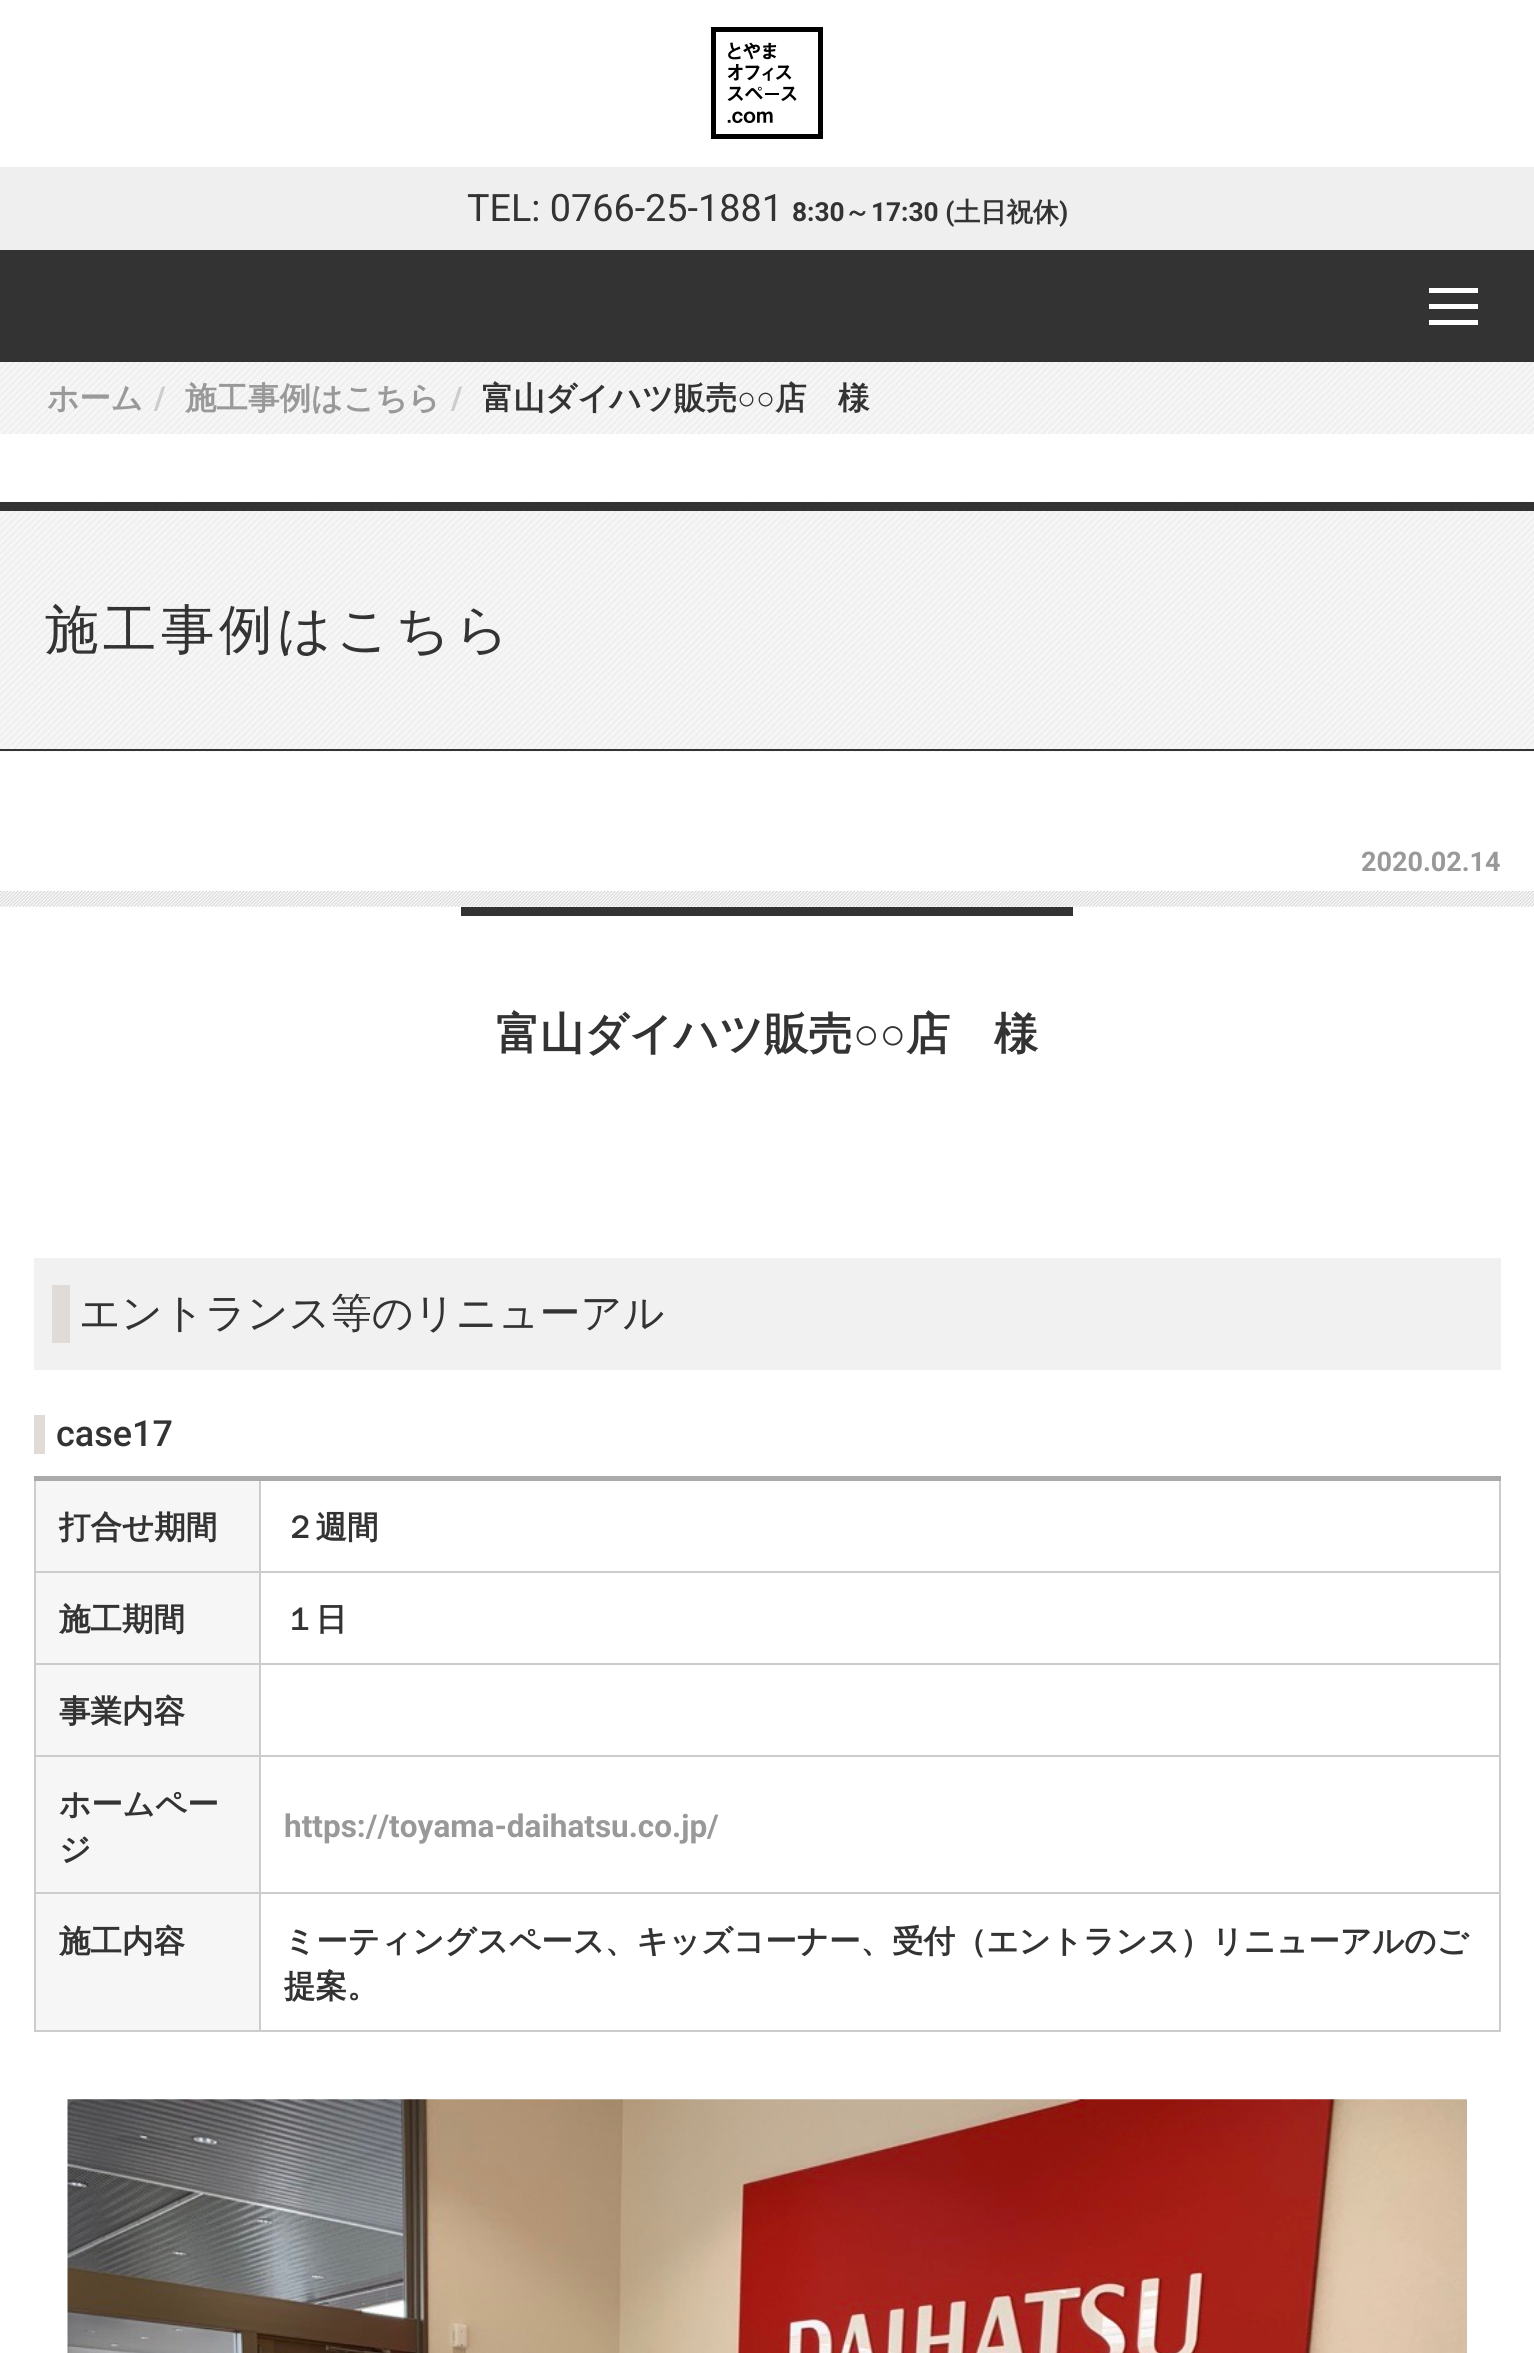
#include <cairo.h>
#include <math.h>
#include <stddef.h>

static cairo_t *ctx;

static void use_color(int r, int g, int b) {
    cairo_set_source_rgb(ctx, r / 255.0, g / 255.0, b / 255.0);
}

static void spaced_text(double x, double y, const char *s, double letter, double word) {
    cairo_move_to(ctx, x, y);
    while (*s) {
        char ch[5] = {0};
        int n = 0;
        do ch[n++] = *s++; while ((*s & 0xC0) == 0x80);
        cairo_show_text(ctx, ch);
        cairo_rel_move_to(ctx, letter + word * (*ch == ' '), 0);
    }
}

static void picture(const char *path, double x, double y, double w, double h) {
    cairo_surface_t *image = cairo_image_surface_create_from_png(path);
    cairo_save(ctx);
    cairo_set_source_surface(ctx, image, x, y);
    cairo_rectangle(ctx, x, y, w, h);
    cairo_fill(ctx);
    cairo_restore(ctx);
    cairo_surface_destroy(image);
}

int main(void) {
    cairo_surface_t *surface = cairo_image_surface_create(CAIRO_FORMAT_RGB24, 1534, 2353);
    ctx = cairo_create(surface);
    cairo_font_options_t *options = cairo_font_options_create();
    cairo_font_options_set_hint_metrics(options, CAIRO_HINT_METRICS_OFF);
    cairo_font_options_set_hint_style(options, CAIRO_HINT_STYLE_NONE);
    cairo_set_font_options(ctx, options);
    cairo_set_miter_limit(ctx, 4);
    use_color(255, 255, 255);
    cairo_paint(ctx);
    picture("img1.png", 711, 27, 112, 112);
    use_color(239, 239, 239);
    cairo_rectangle(ctx, 0, 167, 1534, 83);
    cairo_fill(ctx);
    cairo_select_font_face(ctx, "Roboto", CAIRO_FONT_SLANT_NORMAL, CAIRO_FONT_WEIGHT_NORMAL);
    cairo_set_font_size(ctx, 37.75);
    use_color(51, 51, 51);
    cairo_move_to(ctx, 467, 221);
    cairo_show_text(ctx, "TEL: 0766-25-1881");
    cairo_select_font_face(ctx, "Roboto", CAIRO_FONT_SLANT_NORMAL, CAIRO_FONT_WEIGHT_BOLD);
    cairo_set_font_size(ctx, 26.25);
    cairo_move_to(ctx, 792, 221);
    cairo_show_text(ctx, "8:30");
    cairo_select_font_face(ctx, "WenQuanYi Zen Hei", CAIRO_FONT_SLANT_NORMAL, CAIRO_FONT_WEIGHT_BOLD);
    cairo_move_to(ctx, 844, 221);
    cairo_show_text(ctx, "～");
    cairo_select_font_face(ctx, "Roboto", CAIRO_FONT_SLANT_NORMAL, CAIRO_FONT_WEIGHT_BOLD);
    cairo_move_to(ctx, 871, 221);
    cairo_show_text(ctx, "17:30 (");
    cairo_select_font_face(ctx, "WenQuanYi Zen Hei", CAIRO_FONT_SLANT_NORMAL, CAIRO_FONT_WEIGHT_BOLD);
    cairo_move_to(ctx, 954, 221);
    cairo_show_text(ctx, "土日祝休");
    cairo_select_font_face(ctx, "Roboto", CAIRO_FONT_SLANT_NORMAL, CAIRO_FONT_WEIGHT_BOLD);
    cairo_move_to(ctx, 1059, 221);
    cairo_show_text(ctx, ")");
    cairo_rectangle(ctx, 0, 250, 1534, 112);
    cairo_fill(ctx);
    use_color(255, 255, 255);
    cairo_rectangle(ctx, 1429, 288, 49, 5);
    cairo_fill(ctx);
    cairo_rectangle(ctx, 1429, 304, 49, 5);
    cairo_fill(ctx);
    cairo_rectangle(ctx, 1429, 320, 49, 5);
    cairo_fill(ctx);
    picture("img2.png", 0, 362, 1534, 72);
    cairo_select_font_face(ctx, "WenQuanYi Zen Hei", CAIRO_FONT_SLANT_NORMAL, CAIRO_FONT_WEIGHT_BOLD);
    cairo_set_font_size(ctx, 31.5);
    use_color(153, 153, 153);
    cairo_move_to(ctx, 47, 409);
    cairo_show_text(ctx, "ホーム");
    cairo_select_font_face(ctx, "Roboto", CAIRO_FONT_SLANT_NORMAL, CAIRO_FONT_WEIGHT_BOLD);
    use_color(204, 204, 204);
    cairo_move_to(ctx, 154, 409);
    cairo_show_text(ctx, "/");
    cairo_select_font_face(ctx, "WenQuanYi Zen Hei", CAIRO_FONT_SLANT_NORMAL, CAIRO_FONT_WEIGHT_BOLD);
    use_color(153, 153, 153);
    cairo_move_to(ctx, 185, 409);
    cairo_show_text(ctx, "施工事例はこちら");
    cairo_select_font_face(ctx, "Roboto", CAIRO_FONT_SLANT_NORMAL, CAIRO_FONT_WEIGHT_BOLD);
    use_color(204, 204, 204);
    cairo_move_to(ctx, 451, 409);
    cairo_show_text(ctx, "/");
    cairo_select_font_face(ctx, "WenQuanYi Zen Hei", CAIRO_FONT_SLANT_NORMAL, CAIRO_FONT_WEIGHT_BOLD);
    use_color(51, 51, 51);
    cairo_move_to(ctx, 482, 409);
    cairo_show_text(ctx, "富山ダイハツ販売");
    cairo_select_font_face(ctx, "Liberation Sans", CAIRO_FONT_SLANT_NORMAL, CAIRO_FONT_WEIGHT_BOLD);
    cairo_move_to(ctx, 737, 409);
    cairo_show_text(ctx, "○○");
    cairo_select_font_face(ctx, "WenQuanYi Zen Hei", CAIRO_FONT_SLANT_NORMAL, CAIRO_FONT_WEIGHT_BOLD);
    cairo_move_to(ctx, 775, 409);
    cairo_show_text(ctx, "店　様");
    picture("img3.png", 0, 501, 1534, 251);
    cairo_rectangle(ctx, 0, 502, 1534, 9);
    cairo_fill(ctx);
    cairo_rectangle(ctx, 0, 749, 1534, 2);
    cairo_fill(ctx);
    cairo_select_font_face(ctx, "WenQuanYi Zen Hei Medium", CAIRO_FONT_SLANT_NORMAL, CAIRO_FONT_WEIGHT_NORMAL);
    cairo_set_font_size(ctx, 53.5);
    spaced_text(45, 648, "施工事例はこちら", 4.5, 0);
    cairo_select_font_face(ctx, "Roboto", CAIRO_FONT_SLANT_NORMAL, CAIRO_FONT_WEIGHT_BOLD);
    cairo_set_font_size(ctx, 27);
    use_color(153, 153, 153);
    cairo_move_to(ctx, 1361, 871);
    cairo_show_text(ctx, "2020.02.14");
    picture("img4.png", 0, 891, 1534, 16);
    use_color(51, 51, 51);
    cairo_rectangle(ctx, 461, 907, 612, 9);
    cairo_fill(ctx);
    cairo_select_font_face(ctx, "WenQuanYi Zen Hei", CAIRO_FONT_SLANT_NORMAL, CAIRO_FONT_WEIGHT_BOLD);
    cairo_set_font_size(ctx, 44);
    cairo_move_to(ctx, 496, 1049);
    cairo_show_text(ctx, "富山ダイハツ販売");
    cairo_select_font_face(ctx, "Liberation Sans", CAIRO_FONT_SLANT_NORMAL, CAIRO_FONT_WEIGHT_BOLD);
    cairo_move_to(ctx, 853, 1049);
    cairo_show_text(ctx, "○○");
    cairo_select_font_face(ctx, "WenQuanYi Zen Hei", CAIRO_FONT_SLANT_NORMAL, CAIRO_FONT_WEIGHT_BOLD);
    cairo_move_to(ctx, 906, 1049);
    cairo_show_text(ctx, "店　様");
    use_color(241, 241, 241);
    cairo_rectangle(ctx, 34, 1258, 1467, 112);
    cairo_fill(ctx);
    use_color(224, 219, 215);
    cairo_rectangle(ctx, 52, 1285, 18, 58);
    cairo_fill(ctx);
    cairo_select_font_face(ctx, "WenQuanYi Zen Hei Medium", CAIRO_FONT_SLANT_NORMAL, CAIRO_FONT_WEIGHT_NORMAL);
    cairo_set_font_size(ctx, 41);
    use_color(51, 51, 51);
    cairo_move_to(ctx, 79, 1327);
    cairo_show_text(ctx, "エントランス等のリニューアル");
    use_color(224, 219, 215);
    cairo_rectangle(ctx, 34, 1415, 11, 39);
    cairo_fill(ctx);
    cairo_select_font_face(ctx, "Roboto Medium", CAIRO_FONT_SLANT_NORMAL, CAIRO_FONT_WEIGHT_NORMAL);
    cairo_set_font_size(ctx, 36);
    use_color(51, 51, 51);
    cairo_move_to(ctx, 56, 1446);
    cairo_show_text(ctx, "case17");
    use_color(204, 204, 204);
    cairo_rectangle(ctx, 259, 1571, 1242, 2);
    cairo_fill(ctx);
    cairo_rectangle(ctx, 259, 1663, 1242, 2);
    cairo_fill(ctx);
    cairo_rectangle(ctx, 259, 1755, 1242, 2);
    cairo_fill(ctx);
    use_color(246, 246, 246);
    cairo_rectangle(ctx, 36, 1757, 223, 273);
    cairo_fill(ctx);
    use_color(204, 204, 204);
    cairo_rectangle(ctx, 259, 1892, 1242, 2);
    cairo_fill(ctx);
    cairo_rectangle(ctx, 1499, 1892, 2, 140);
    cairo_fill(ctx);
    cairo_rectangle(ctx, 259, 2030, 1242, 2);
    cairo_fill(ctx);
    cairo_rectangle(ctx, 259, 1892, 2, 140);
    cairo_fill(ctx);
    cairo_rectangle(ctx, 34, 1892, 227, 2);
    cairo_fill(ctx);
    cairo_rectangle(ctx, 259, 1755, 2, 140);
    cairo_fill(ctx);
    cairo_rectangle(ctx, 34, 1755, 227, 2);
    cairo_fill(ctx);
    cairo_rectangle(ctx, 259, 1663, 2, 94);
    cairo_fill(ctx);
    cairo_rectangle(ctx, 34, 1663, 227, 2);
    cairo_fill(ctx);
    cairo_rectangle(ctx, 259, 1571, 2, 94);
    cairo_fill(ctx);
    cairo_rectangle(ctx, 34, 1571, 227, 2);
    cairo_fill(ctx);
    cairo_rectangle(ctx, 259, 1478, 2, 95);
    cairo_fill(ctx);
    cairo_rectangle(ctx, 34, 2030, 227, 2);
    cairo_fill(ctx);
    cairo_rectangle(ctx, 34, 1892, 2, 140);
    cairo_fill(ctx);
    cairo_rectangle(ctx, 34, 1755, 2, 140);
    cairo_fill(ctx);
    cairo_rectangle(ctx, 34, 1663, 2, 94);
    cairo_fill(ctx);
    cairo_rectangle(ctx, 34, 1478, 2, 187);
    cairo_fill(ctx);
    cairo_rectangle(ctx, 1499, 1755, 2, 140);
    cairo_fill(ctx);
    cairo_rectangle(ctx, 1499, 1663, 2, 94);
    cairo_fill(ctx);
    cairo_rectangle(ctx, 1499, 1478, 2, 187);
    cairo_fill(ctx);
    use_color(170, 170, 170);
    cairo_rectangle(ctx, 34, 1476, 1467, 5);
    cairo_fill(ctx);
    use_color(246, 246, 246);
    cairo_rectangle(ctx, 36, 1481, 223, 90);
    cairo_fill(ctx);
    cairo_select_font_face(ctx, "WenQuanYi Zen Hei", CAIRO_FONT_SLANT_NORMAL, CAIRO_FONT_WEIGHT_BOLD);
    cairo_set_font_size(ctx, 31.5);
    use_color(51, 51, 51);
    cairo_move_to(ctx, 59, 1538);
    cairo_show_text(ctx, "打合せ期間");
    cairo_move_to(ctx, 284, 1538);
    cairo_show_text(ctx, "２週間");
    use_color(246, 246, 246);
    cairo_rectangle(ctx, 36, 1573, 223, 90);
    cairo_fill(ctx);
    use_color(51, 51, 51);
    cairo_move_to(ctx, 59, 1630);
    cairo_show_text(ctx, "施工期間");
    cairo_move_to(ctx, 284, 1630);
    cairo_show_text(ctx, "１日");
    use_color(246, 246, 246);
    cairo_rectangle(ctx, 36, 1665, 223, 90);
    cairo_fill(ctx);
    use_color(51, 51, 51);
    cairo_move_to(ctx, 59, 1722);
    cairo_show_text(ctx, "事業内容");
    cairo_move_to(ctx, 59, 1815);
    cairo_show_text(ctx, "ホームペー");
    cairo_move_to(ctx, 59, 1860);
    cairo_show_text(ctx, "ジ");
    cairo_select_font_face(ctx, "Roboto", CAIRO_FONT_SLANT_NORMAL, CAIRO_FONT_WEIGHT_BOLD);
    use_color(153, 153, 153);
    cairo_move_to(ctx, 284, 1837);
    cairo_show_text(ctx, "https://toyama-daihatsu.co.jp/");
    cairo_select_font_face(ctx, "WenQuanYi Zen Hei", CAIRO_FONT_SLANT_NORMAL, CAIRO_FONT_WEIGHT_BOLD);
    use_color(51, 51, 51);
    cairo_move_to(ctx, 59, 1952);
    cairo_show_text(ctx, "施工内容");
    cairo_move_to(ctx, 284, 1952);
    cairo_show_text(ctx, "ミーティングスペース、キッズコーナー、受付（エントランス）リニューアルのご");
    cairo_move_to(ctx, 284, 1997);
    cairo_show_text(ctx, "提案。");
    picture("img5.png", 67, 2099, 1400, 254);
    cairo_surface_write_to_png(surface, "result.png");
    cairo_font_options_destroy(options);
    cairo_destroy(ctx);
    cairo_surface_destroy(surface);
    return 0;
}
